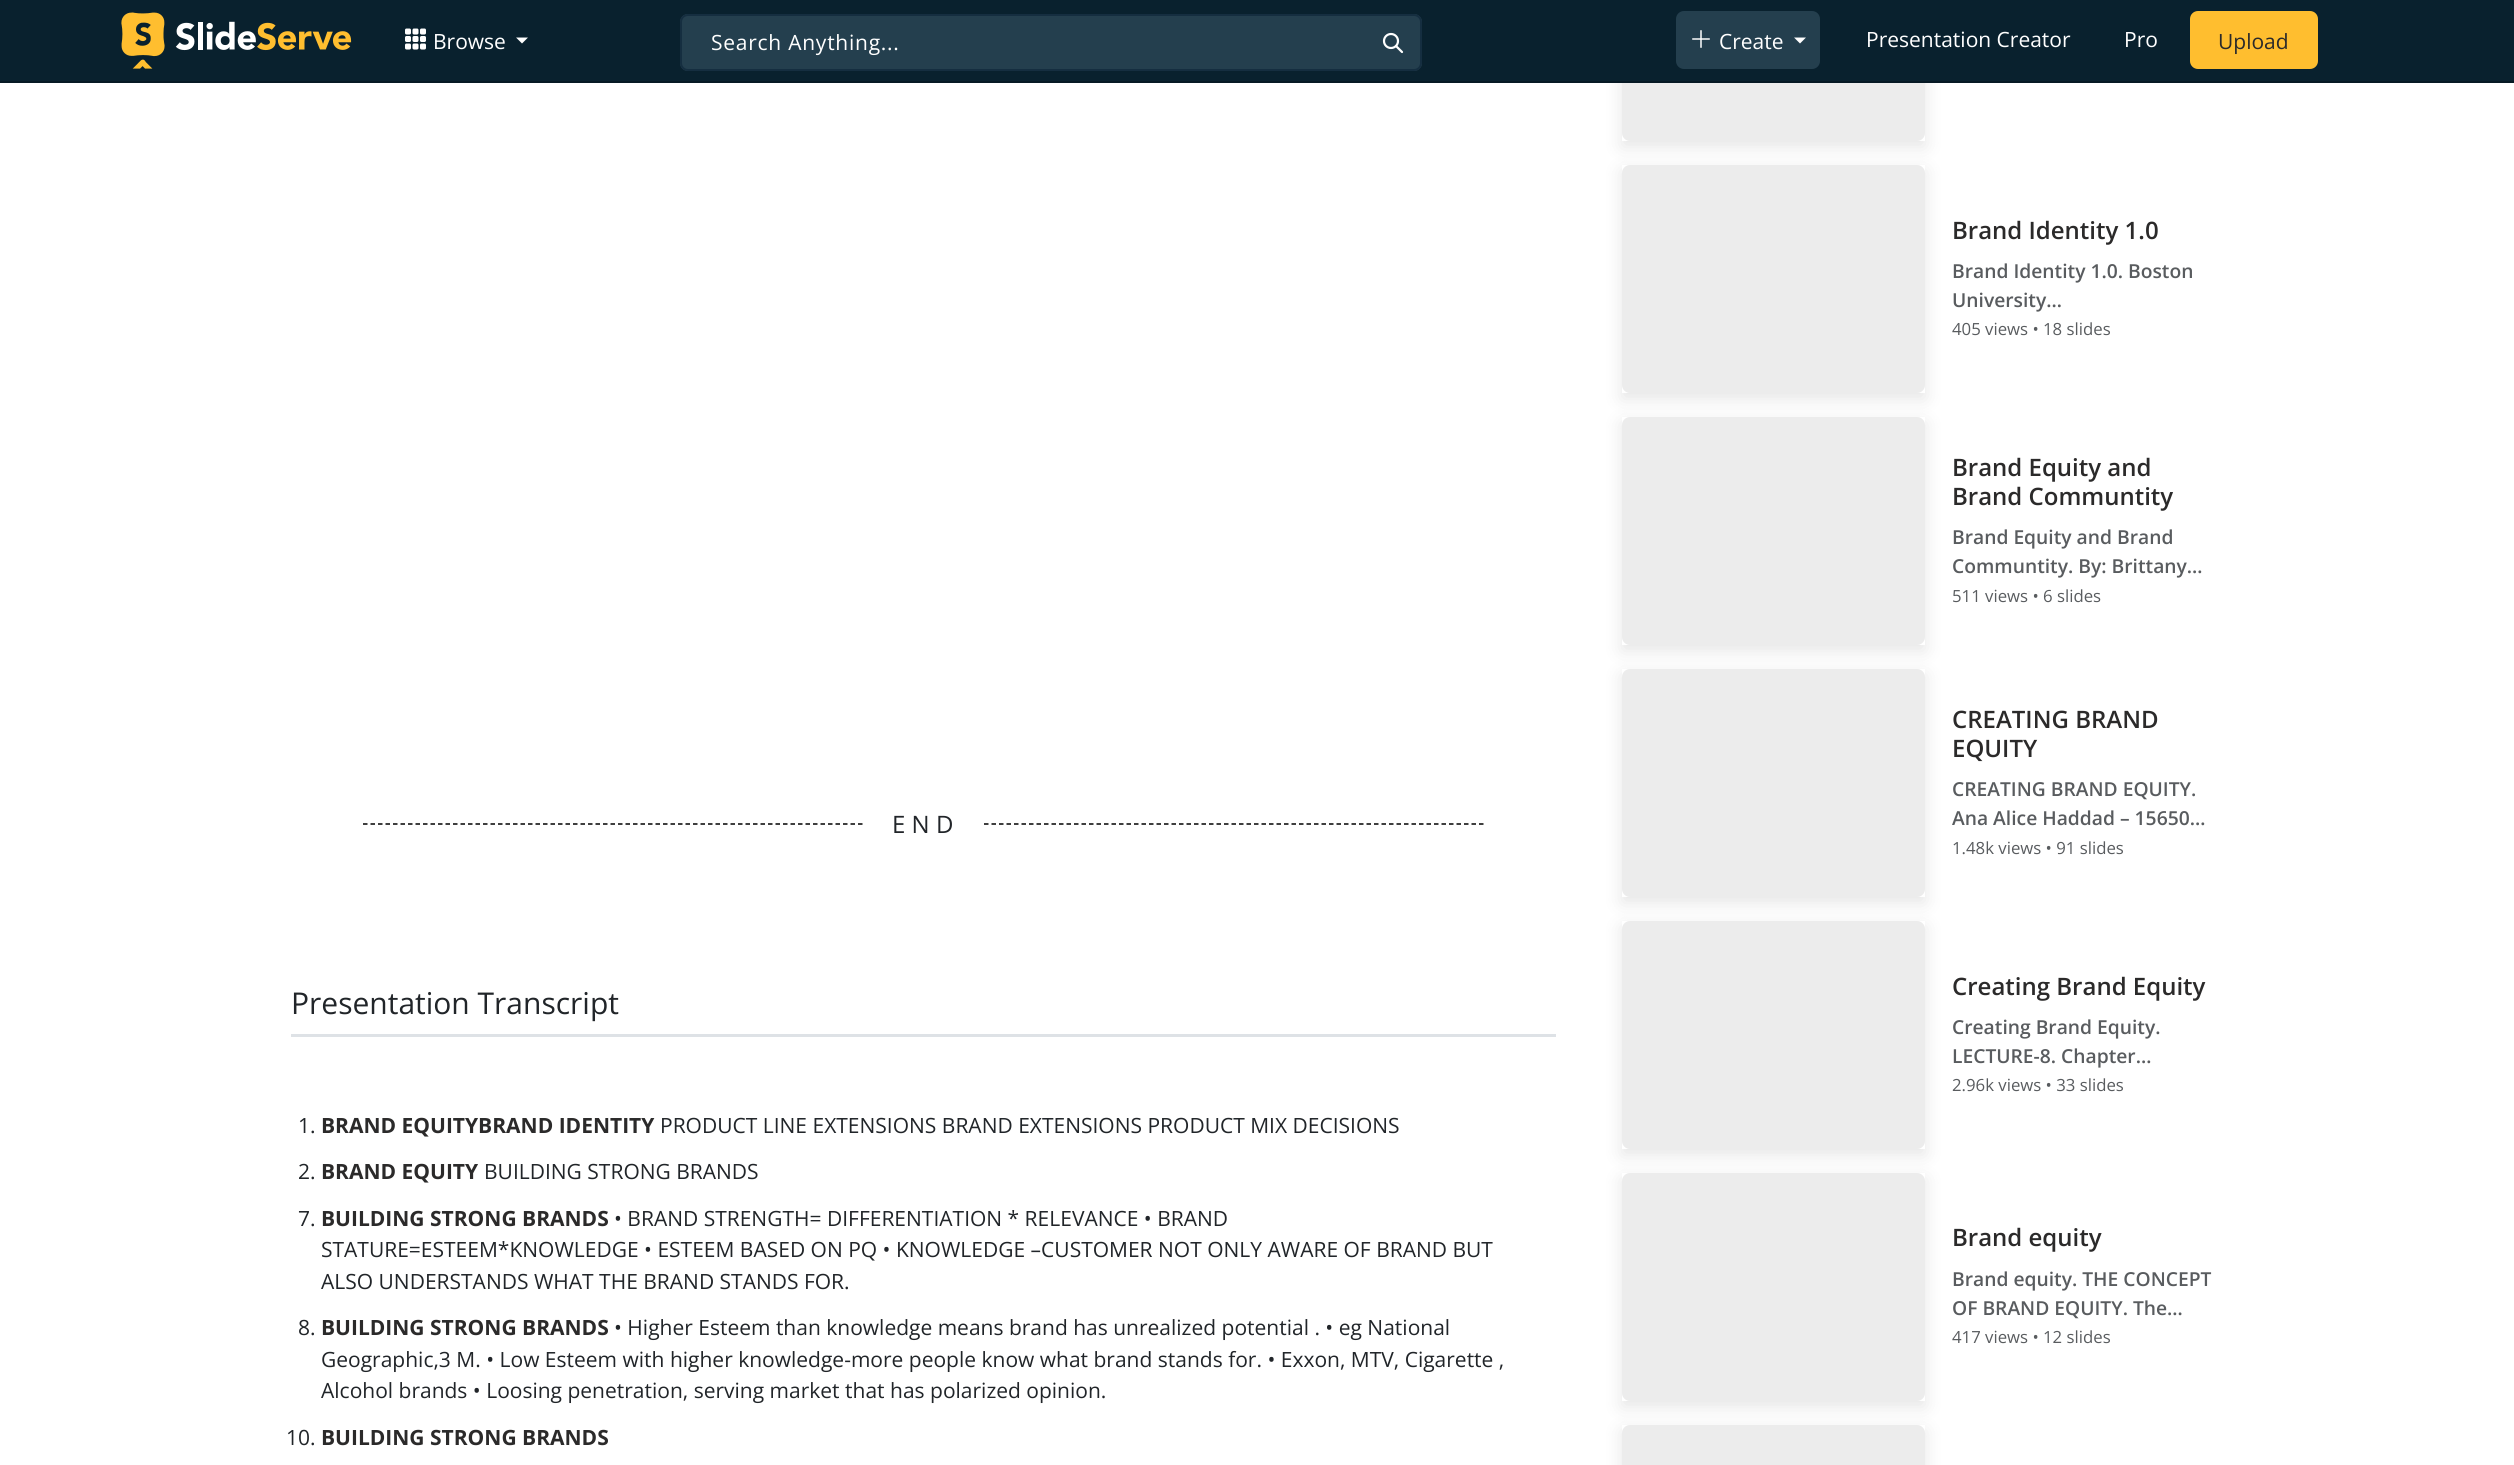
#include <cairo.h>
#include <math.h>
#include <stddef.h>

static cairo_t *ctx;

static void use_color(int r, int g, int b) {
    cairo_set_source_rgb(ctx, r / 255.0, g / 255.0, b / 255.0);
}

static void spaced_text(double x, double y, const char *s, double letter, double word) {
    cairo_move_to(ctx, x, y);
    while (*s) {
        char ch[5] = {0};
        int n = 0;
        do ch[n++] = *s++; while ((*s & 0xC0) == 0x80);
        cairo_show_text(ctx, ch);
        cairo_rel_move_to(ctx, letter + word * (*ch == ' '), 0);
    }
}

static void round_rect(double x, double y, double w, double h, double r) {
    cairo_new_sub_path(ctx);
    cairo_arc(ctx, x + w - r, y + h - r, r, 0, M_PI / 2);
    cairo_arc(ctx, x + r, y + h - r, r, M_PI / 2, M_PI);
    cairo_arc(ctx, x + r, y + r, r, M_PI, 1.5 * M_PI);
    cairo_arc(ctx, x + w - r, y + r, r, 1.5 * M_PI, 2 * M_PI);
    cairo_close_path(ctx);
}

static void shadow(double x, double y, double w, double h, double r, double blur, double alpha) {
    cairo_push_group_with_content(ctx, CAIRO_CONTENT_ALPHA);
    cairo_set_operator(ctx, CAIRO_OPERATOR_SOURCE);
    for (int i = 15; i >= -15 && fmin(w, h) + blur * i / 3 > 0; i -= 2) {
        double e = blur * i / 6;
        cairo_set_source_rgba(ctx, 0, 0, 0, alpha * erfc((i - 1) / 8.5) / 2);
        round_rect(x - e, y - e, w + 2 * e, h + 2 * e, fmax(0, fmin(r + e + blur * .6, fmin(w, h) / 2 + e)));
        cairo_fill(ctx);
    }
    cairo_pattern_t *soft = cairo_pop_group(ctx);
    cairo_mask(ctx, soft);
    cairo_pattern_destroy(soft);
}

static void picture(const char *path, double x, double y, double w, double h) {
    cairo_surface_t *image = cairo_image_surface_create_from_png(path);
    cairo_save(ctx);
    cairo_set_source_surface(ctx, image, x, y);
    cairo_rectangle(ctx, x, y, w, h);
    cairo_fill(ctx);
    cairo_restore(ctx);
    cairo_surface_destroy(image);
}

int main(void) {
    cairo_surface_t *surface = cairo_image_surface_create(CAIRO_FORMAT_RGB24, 2514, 1465);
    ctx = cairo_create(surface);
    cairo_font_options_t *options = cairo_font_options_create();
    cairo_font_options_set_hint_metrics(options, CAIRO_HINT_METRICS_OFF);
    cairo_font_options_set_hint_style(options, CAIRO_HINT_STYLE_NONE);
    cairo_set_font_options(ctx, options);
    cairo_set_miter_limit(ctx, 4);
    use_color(255, 255, 255);
    cairo_paint(ctx);
    cairo_save(ctx);
    cairo_set_fill_rule(ctx, CAIRO_FILL_RULE_EVEN_ODD);
    cairo_new_path(ctx);
    cairo_move_to(ctx, 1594, 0);
    cairo_line_to(ctx, 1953, 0);
    cairo_line_to(ctx, 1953, 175);
    cairo_line_to(ctx, 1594, 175);
    cairo_close_path(ctx);
    cairo_move_to(ctx, 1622, -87);
    cairo_line_to(ctx, 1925, -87);
    cairo_line_to(ctx, 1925, 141);
    cairo_line_to(ctx, 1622, 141);
    cairo_close_path(ctx);
    cairo_clip(ctx);
    use_color(0, 0, 0);
    shadow(1622, -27, 303, 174, 0, 9, 0.1);
    cairo_restore(ctx);
    use_color(236, 236, 236);
    round_rect(1622, -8, 303, 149, 8);
    cairo_fill(ctx);
    use_color(9, 33, 46);
    cairo_rectangle(ctx, 0, 0, 2514, 81);
    cairo_fill(ctx);
    use_color(6, 25, 36);
    cairo_rectangle(ctx, 0, 81, 2514, 2);
    cairo_fill(ctx);
    picture("img1.png", 121, 12, 231, 57);
    picture("img2.png", 405, 28, 21, 22);
    cairo_select_font_face(ctx, "Open Sans", CAIRO_FONT_SLANT_NORMAL, CAIRO_FONT_WEIGHT_NORMAL);
    cairo_set_font_size(ctx, 21);
    use_color(255, 255, 255);
    cairo_move_to(ctx, 433, 49);
    cairo_show_text(ctx, "Browse");
    cairo_new_path(ctx);
    cairo_move_to(ctx, 516, 37.5);
    cairo_line_to(ctx, 528, 37.5);
    cairo_line_to(ctx, 522, 43.5);
    cairo_close_path(ctx);
    cairo_fill(ctx);
    use_color(36, 63, 78);
    round_rect(1677, 12, 142, 56, 7);
    cairo_fill_preserve(ctx);
    cairo_stroke(ctx);
    picture("img3.png", 1692, 30, 18, 18);
    use_color(255, 255, 255);
    cairo_move_to(ctx, 1719, 49);
    cairo_show_text(ctx, "Create");
    cairo_new_path(ctx);
    cairo_move_to(ctx, 1794, 37.5);
    cairo_line_to(ctx, 1806, 37.5);
    cairo_line_to(ctx, 1800, 43.5);
    cairo_close_path(ctx);
    cairo_fill(ctx);
    cairo_move_to(ctx, 1866, 47);
    cairo_show_text(ctx, "Presentation Creator");
    cairo_move_to(ctx, 2124, 47);
    cairo_show_text(ctx, "Pro");
    use_color(255, 190, 47);
    round_rect(2191, 12, 126, 56, 7);
    cairo_fill_preserve(ctx);
    cairo_stroke(ctx);
    use_color(43, 42, 42);
    cairo_move_to(ctx, 2218, 49);
    cairo_show_text(ctx, "Upload");
    use_color(36, 63, 78);
    round_rect(680, 14, 742, 57, 8);
    cairo_fill(ctx);
    cairo_arc(ctx, 1391, 41, 7, 0, 2 * M_PI);
    use_color(255, 255, 255);
    cairo_set_line_width(ctx, 2.2);
    cairo_stroke(ctx);
    cairo_new_path(ctx);
    cairo_move_to(ctx, 1402, 52);
    cairo_line_to(ctx, 1396, 46);
    cairo_set_line_cap(ctx, CAIRO_LINE_CAP_ROUND);
    cairo_set_line_join(ctx, CAIRO_LINE_JOIN_ROUND);
    cairo_stroke(ctx);
    round_rect(681, 15, 740, 55, 7);
    use_color(21, 46, 64);
    cairo_set_line_width(ctx, 2);
    cairo_set_line_cap(ctx, CAIRO_LINE_CAP_BUTT);
    cairo_set_line_join(ctx, CAIRO_LINE_JOIN_MITER);
    cairo_stroke(ctx);
    use_color(255, 255, 255);
    spaced_text(711, 50, "Search Anything...", 0.75, 0);
    cairo_new_path(ctx);
    cairo_move_to(ctx, 363, 824);
    cairo_line_to(ctx, 862.5, 824);
    use_color(0, 0, 0);
    cairo_set_line_width(ctx, 1.5);
    cairo_set_dash(ctx, (double[]){4.5, 3}, 2, 0);
    cairo_stroke(ctx);
    cairo_set_font_size(ctx, 24);
    use_color(33, 37, 41);
    cairo_move_to(ctx, 892, 833);
    cairo_show_text(ctx, "E N D");
    cairo_new_path(ctx);
    cairo_move_to(ctx, 984, 824);
    cairo_line_to(ctx, 1483.5, 824);
    use_color(0, 0, 0);
    cairo_stroke(ctx);
    cairo_set_font_size(ctx, 30);
    use_color(33, 37, 41);
    cairo_move_to(ctx, 291, 1014);
    cairo_show_text(ctx, "Presentation Transcript");
    use_color(222, 226, 230);
    cairo_rectangle(ctx, 291, 1034, 1265, 3);
    cairo_fill(ctx);
    cairo_set_font_size(ctx, 21);
    use_color(33, 37, 41);
    cairo_move_to(ctx, 298, 1133);
    cairo_show_text(ctx, "1.");
    cairo_select_font_face(ctx, "Open Sans", CAIRO_FONT_SLANT_NORMAL, CAIRO_FONT_WEIGHT_BOLD);
    use_color(43, 42, 42);
    cairo_move_to(ctx, 321, 1133);
    cairo_show_text(ctx, "BRAND EQUITYBRAND IDENTITY");
    cairo_select_font_face(ctx, "Open Sans", CAIRO_FONT_SLANT_NORMAL, CAIRO_FONT_WEIGHT_NORMAL);
    use_color(33, 37, 41);
    cairo_move_to(ctx, 660, 1133);
    cairo_show_text(ctx, "PRODUCT LINE EXTENSIONS BRAND EXTENSIONS PRODUCT MIX DECISIONS");
    cairo_move_to(ctx, 298, 1179);
    cairo_show_text(ctx, "2.");
    cairo_select_font_face(ctx, "Open Sans", CAIRO_FONT_SLANT_NORMAL, CAIRO_FONT_WEIGHT_BOLD);
    use_color(43, 42, 42);
    cairo_move_to(ctx, 321, 1179);
    cairo_show_text(ctx, "BRAND EQUITY");
    cairo_select_font_face(ctx, "Open Sans", CAIRO_FONT_SLANT_NORMAL, CAIRO_FONT_WEIGHT_NORMAL);
    use_color(33, 37, 41);
    cairo_move_to(ctx, 484, 1179);
    cairo_show_text(ctx, "BUILDING STRONG BRANDS");
    cairo_move_to(ctx, 298, 1226);
    cairo_show_text(ctx, "7.");
    cairo_select_font_face(ctx, "Open Sans", CAIRO_FONT_SLANT_NORMAL, CAIRO_FONT_WEIGHT_BOLD);
    use_color(43, 42, 42);
    cairo_move_to(ctx, 321, 1226);
    cairo_show_text(ctx, "BUILDING STRONG BRANDS");
    cairo_select_font_face(ctx, "Open Sans", CAIRO_FONT_SLANT_NORMAL, CAIRO_FONT_WEIGHT_NORMAL);
    use_color(33, 37, 41);
    cairo_move_to(ctx, 614, 1226);
    cairo_show_text(ctx, "• BRAND STRENGTH= DIFFERENTIATION * RELEVANCE • BRAND");
    cairo_move_to(ctx, 321, 1257);
    cairo_show_text(ctx, "STATURE=ESTEEM*KNOWLEDGE • ESTEEM BASED ON PQ • KNOWLEDGE –CUSTOMER NOT ONLY AWARE OF BRAND BUT");
    cairo_move_to(ctx, 321, 1289);
    cairo_show_text(ctx, "ALSO UNDERSTANDS WHAT THE BRAND STANDS FOR.");
    cairo_move_to(ctx, 298, 1335);
    cairo_show_text(ctx, "8.");
    cairo_select_font_face(ctx, "Open Sans", CAIRO_FONT_SLANT_NORMAL, CAIRO_FONT_WEIGHT_BOLD);
    use_color(43, 42, 42);
    cairo_move_to(ctx, 321, 1335);
    cairo_show_text(ctx, "BUILDING STRONG BRANDS");
    cairo_select_font_face(ctx, "Open Sans", CAIRO_FONT_SLANT_NORMAL, CAIRO_FONT_WEIGHT_NORMAL);
    use_color(33, 37, 41);
    cairo_move_to(ctx, 614, 1335);
    cairo_show_text(ctx, "• Higher Esteem than knowledge means brand has unrealized potential . • eg National");
    cairo_move_to(ctx, 321, 1367);
    cairo_show_text(ctx, "Geographic,3 M. • Low Esteem with higher knowledge-more people know what brand stands for. • Exxon, MTV, Cigarette ,");
    cairo_move_to(ctx, 321, 1398);
    cairo_show_text(ctx, "Alcohol brands • Loosing penetration, serving market that has polarized opinion.");
    cairo_move_to(ctx, 286, 1445);
    cairo_show_text(ctx, "10.");
    cairo_select_font_face(ctx, "Open Sans", CAIRO_FONT_SLANT_NORMAL, CAIRO_FONT_WEIGHT_BOLD);
    use_color(43, 42, 42);
    cairo_move_to(ctx, 321, 1445);
    cairo_show_text(ctx, "BUILDING STRONG BRANDS");
    cairo_save(ctx);
    cairo_set_fill_rule(ctx, CAIRO_FILL_RULE_EVEN_ODD);
    cairo_new_path(ctx);
    cairo_move_to(ctx, 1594, 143);
    cairo_line_to(ctx, 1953, 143);
    cairo_line_to(ctx, 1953, 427);
    cairo_line_to(ctx, 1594, 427);
    cairo_close_path(ctx);
    cairo_move_to(ctx, 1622, 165);
    cairo_line_to(ctx, 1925, 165);
    cairo_line_to(ctx, 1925, 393);
    cairo_line_to(ctx, 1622, 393);
    cairo_close_path(ctx);
    cairo_clip(ctx);
    use_color(0, 0, 0);
    shadow(1622, 171, 303, 228, 0, 9, 0.1);
    cairo_restore(ctx);
    use_color(236, 236, 236);
    round_rect(1622, 165, 303, 228, 8);
    cairo_fill(ctx);
    cairo_select_font_face(ctx, "Open Sans SemiBold", CAIRO_FONT_SLANT_NORMAL, CAIRO_FONT_WEIGHT_NORMAL);
    cairo_set_font_size(ctx, 24);
    use_color(43, 42, 42);
    cairo_move_to(ctx, 1952, 239);
    cairo_show_text(ctx, "Brand Identity 1.0");
    cairo_set_font_size(ctx, 19.25);
    use_color(89, 92, 95);
    cairo_move_to(ctx, 1952, 278);
    cairo_show_text(ctx, "Brand Identity 1.0. Boston");
    cairo_move_to(ctx, 1952, 307);
    cairo_show_text(ctx, "University…");
    cairo_select_font_face(ctx, "Open Sans", CAIRO_FONT_SLANT_NORMAL, CAIRO_FONT_WEIGHT_NORMAL);
    cairo_set_font_size(ctx, 16.75);
    cairo_move_to(ctx, 1952, 335);
    cairo_show_text(ctx, "405 views • 18 slides");
    cairo_save(ctx);
    cairo_set_fill_rule(ctx, CAIRO_FILL_RULE_EVEN_ODD);
    cairo_new_path(ctx);
    cairo_move_to(ctx, 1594, 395);
    cairo_line_to(ctx, 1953, 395);
    cairo_line_to(ctx, 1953, 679);
    cairo_line_to(ctx, 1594, 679);
    cairo_close_path(ctx);
    cairo_move_to(ctx, 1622, 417);
    cairo_line_to(ctx, 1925, 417);
    cairo_line_to(ctx, 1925, 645);
    cairo_line_to(ctx, 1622, 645);
    cairo_close_path(ctx);
    cairo_clip(ctx);
    use_color(0, 0, 0);
    shadow(1622, 423, 303, 228, 0, 9, 0.1);
    cairo_restore(ctx);
    use_color(236, 236, 236);
    round_rect(1622, 417, 303, 228, 8);
    cairo_fill(ctx);
    cairo_select_font_face(ctx, "Open Sans SemiBold", CAIRO_FONT_SLANT_NORMAL, CAIRO_FONT_WEIGHT_NORMAL);
    cairo_set_font_size(ctx, 24);
    use_color(43, 42, 42);
    cairo_move_to(ctx, 1952, 476);
    cairo_show_text(ctx, "Brand Equity and");
    cairo_move_to(ctx, 1952, 505);
    cairo_show_text(ctx, "Brand Communtity");
    cairo_set_font_size(ctx, 19.25);
    use_color(89, 92, 95);
    cairo_move_to(ctx, 1952, 544);
    cairo_show_text(ctx, "Brand Equity and Brand");
    cairo_move_to(ctx, 1952, 573);
    cairo_show_text(ctx, "Communtity. By: Brittany…");
    cairo_select_font_face(ctx, "Open Sans", CAIRO_FONT_SLANT_NORMAL, CAIRO_FONT_WEIGHT_NORMAL);
    cairo_set_font_size(ctx, 16.75);
    cairo_move_to(ctx, 1952, 602);
    cairo_show_text(ctx, "511 views • 6 slides");
    cairo_save(ctx);
    cairo_set_fill_rule(ctx, CAIRO_FILL_RULE_EVEN_ODD);
    cairo_new_path(ctx);
    cairo_move_to(ctx, 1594, 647);
    cairo_line_to(ctx, 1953, 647);
    cairo_line_to(ctx, 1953, 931);
    cairo_line_to(ctx, 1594, 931);
    cairo_close_path(ctx);
    cairo_move_to(ctx, 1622, 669);
    cairo_line_to(ctx, 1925, 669);
    cairo_line_to(ctx, 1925, 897);
    cairo_line_to(ctx, 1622, 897);
    cairo_close_path(ctx);
    cairo_clip(ctx);
    use_color(0, 0, 0);
    shadow(1622, 675, 303, 228, 0, 9, 0.1);
    cairo_restore(ctx);
    use_color(236, 236, 236);
    round_rect(1622, 669, 303, 228, 8);
    cairo_fill(ctx);
    cairo_select_font_face(ctx, "Open Sans SemiBold", CAIRO_FONT_SLANT_NORMAL, CAIRO_FONT_WEIGHT_NORMAL);
    cairo_set_font_size(ctx, 24);
    use_color(43, 42, 42);
    cairo_move_to(ctx, 1952, 728);
    cairo_show_text(ctx, "CREATING BRAND");
    cairo_move_to(ctx, 1952, 757);
    cairo_show_text(ctx, "EQUITY");
    cairo_set_font_size(ctx, 19.25);
    use_color(89, 92, 95);
    cairo_move_to(ctx, 1952, 796);
    cairo_show_text(ctx, "CREATING BRAND EQUITY.");
    cairo_move_to(ctx, 1952, 825);
    cairo_show_text(ctx, "Ana Alice Haddad – 15650…");
    cairo_select_font_face(ctx, "Open Sans", CAIRO_FONT_SLANT_NORMAL, CAIRO_FONT_WEIGHT_NORMAL);
    cairo_set_font_size(ctx, 16.75);
    cairo_move_to(ctx, 1952, 854);
    cairo_show_text(ctx, "1.48k views • 91 slides");
    cairo_save(ctx);
    cairo_set_fill_rule(ctx, CAIRO_FILL_RULE_EVEN_ODD);
    cairo_new_path(ctx);
    cairo_move_to(ctx, 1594, 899);
    cairo_line_to(ctx, 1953, 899);
    cairo_line_to(ctx, 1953, 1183);
    cairo_line_to(ctx, 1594, 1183);
    cairo_close_path(ctx);
    cairo_move_to(ctx, 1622, 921);
    cairo_line_to(ctx, 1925, 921);
    cairo_line_to(ctx, 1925, 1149);
    cairo_line_to(ctx, 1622, 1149);
    cairo_close_path(ctx);
    cairo_clip(ctx);
    use_color(0, 0, 0);
    shadow(1622, 927, 303, 228, 0, 9, 0.1);
    cairo_restore(ctx);
    use_color(236, 236, 236);
    round_rect(1622, 921, 303, 228, 8);
    cairo_fill(ctx);
    cairo_select_font_face(ctx, "Open Sans SemiBold", CAIRO_FONT_SLANT_NORMAL, CAIRO_FONT_WEIGHT_NORMAL);
    cairo_set_font_size(ctx, 24);
    use_color(43, 42, 42);
    cairo_move_to(ctx, 1952, 995);
    cairo_show_text(ctx, "Creating Brand Equity");
    cairo_set_font_size(ctx, 19.25);
    use_color(89, 92, 95);
    cairo_move_to(ctx, 1952, 1034);
    cairo_show_text(ctx, "Creating Brand Equity.");
    cairo_move_to(ctx, 1952, 1063);
    cairo_show_text(ctx, "LECTURE-8. Chapter…");
    cairo_select_font_face(ctx, "Open Sans", CAIRO_FONT_SLANT_NORMAL, CAIRO_FONT_WEIGHT_NORMAL);
    cairo_set_font_size(ctx, 16.75);
    cairo_move_to(ctx, 1952, 1091);
    cairo_show_text(ctx, "2.96k views • 33 slides");
    cairo_save(ctx);
    cairo_set_fill_rule(ctx, CAIRO_FILL_RULE_EVEN_ODD);
    cairo_new_path(ctx);
    cairo_move_to(ctx, 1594, 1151);
    cairo_line_to(ctx, 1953, 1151);
    cairo_line_to(ctx, 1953, 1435);
    cairo_line_to(ctx, 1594, 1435);
    cairo_close_path(ctx);
    cairo_move_to(ctx, 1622, 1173);
    cairo_line_to(ctx, 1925, 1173);
    cairo_line_to(ctx, 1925, 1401);
    cairo_line_to(ctx, 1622, 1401);
    cairo_close_path(ctx);
    cairo_clip(ctx);
    use_color(0, 0, 0);
    shadow(1622, 1179, 303, 228, 0, 9, 0.1);
    cairo_restore(ctx);
    use_color(236, 236, 236);
    round_rect(1622, 1173, 303, 228, 8);
    cairo_fill(ctx);
    cairo_select_font_face(ctx, "Open Sans SemiBold", CAIRO_FONT_SLANT_NORMAL, CAIRO_FONT_WEIGHT_NORMAL);
    cairo_set_font_size(ctx, 24);
    use_color(43, 42, 42);
    cairo_move_to(ctx, 1952, 1246);
    cairo_show_text(ctx, "Brand equity");
    cairo_set_font_size(ctx, 19.25);
    use_color(89, 92, 95);
    cairo_move_to(ctx, 1952, 1286);
    cairo_show_text(ctx, "Brand equity. THE CONCEPT");
    cairo_move_to(ctx, 1952, 1315);
    cairo_show_text(ctx, "OF BRAND EQUITY. The…");
    cairo_select_font_face(ctx, "Open Sans", CAIRO_FONT_SLANT_NORMAL, CAIRO_FONT_WEIGHT_NORMAL);
    cairo_set_font_size(ctx, 16.75);
    cairo_move_to(ctx, 1952, 1343);
    cairo_show_text(ctx, "417 views • 12 slides");
    cairo_save(ctx);
    cairo_set_fill_rule(ctx, CAIRO_FILL_RULE_EVEN_ODD);
    cairo_new_path(ctx);
    cairo_move_to(ctx, 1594, 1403);
    cairo_line_to(ctx, 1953, 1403);
    cairo_line_to(ctx, 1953, 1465);
    cairo_line_to(ctx, 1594, 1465);
    cairo_close_path(ctx);
    cairo_move_to(ctx, 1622, 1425);
    cairo_line_to(ctx, 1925, 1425);
    cairo_line_to(ctx, 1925, 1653);
    cairo_line_to(ctx, 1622, 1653);
    cairo_close_path(ctx);
    cairo_clip(ctx);
    use_color(0, 0, 0);
    shadow(1622, 1431, 303, 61, 0, 9, 0.1);
    cairo_restore(ctx);
    use_color(236, 236, 236);
    round_rect(1622, 1425, 303, 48, 8);
    cairo_fill(ctx);
    cairo_surface_write_to_png(surface, "result.png");
    cairo_font_options_destroy(options);
    cairo_destroy(ctx);
    cairo_surface_destroy(surface);
    return 0;
}
